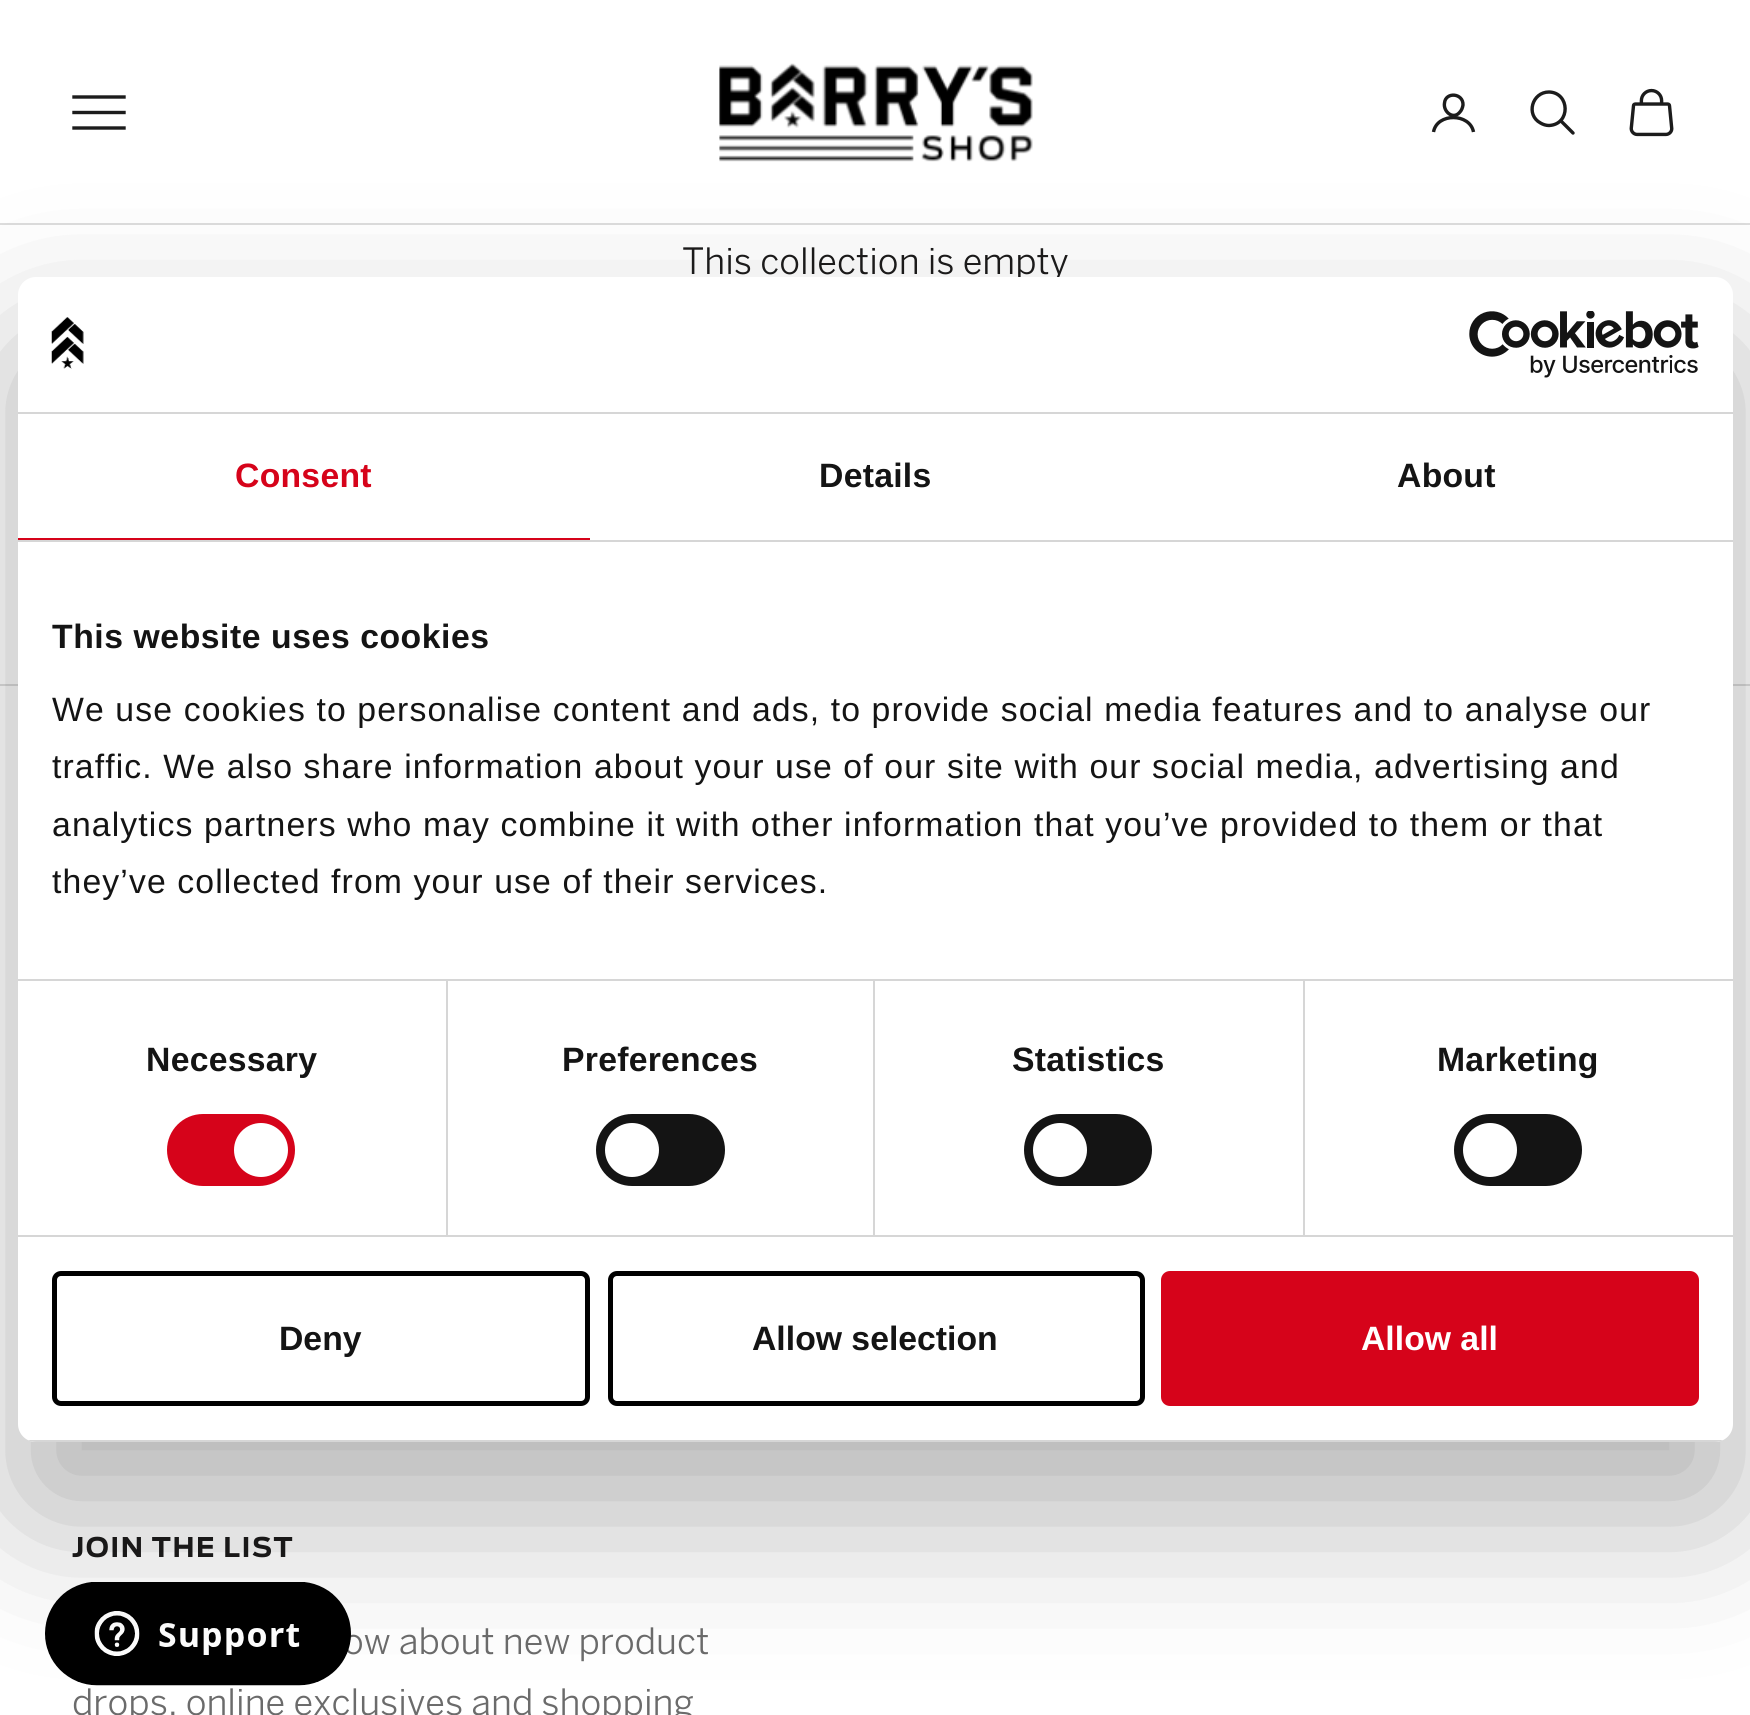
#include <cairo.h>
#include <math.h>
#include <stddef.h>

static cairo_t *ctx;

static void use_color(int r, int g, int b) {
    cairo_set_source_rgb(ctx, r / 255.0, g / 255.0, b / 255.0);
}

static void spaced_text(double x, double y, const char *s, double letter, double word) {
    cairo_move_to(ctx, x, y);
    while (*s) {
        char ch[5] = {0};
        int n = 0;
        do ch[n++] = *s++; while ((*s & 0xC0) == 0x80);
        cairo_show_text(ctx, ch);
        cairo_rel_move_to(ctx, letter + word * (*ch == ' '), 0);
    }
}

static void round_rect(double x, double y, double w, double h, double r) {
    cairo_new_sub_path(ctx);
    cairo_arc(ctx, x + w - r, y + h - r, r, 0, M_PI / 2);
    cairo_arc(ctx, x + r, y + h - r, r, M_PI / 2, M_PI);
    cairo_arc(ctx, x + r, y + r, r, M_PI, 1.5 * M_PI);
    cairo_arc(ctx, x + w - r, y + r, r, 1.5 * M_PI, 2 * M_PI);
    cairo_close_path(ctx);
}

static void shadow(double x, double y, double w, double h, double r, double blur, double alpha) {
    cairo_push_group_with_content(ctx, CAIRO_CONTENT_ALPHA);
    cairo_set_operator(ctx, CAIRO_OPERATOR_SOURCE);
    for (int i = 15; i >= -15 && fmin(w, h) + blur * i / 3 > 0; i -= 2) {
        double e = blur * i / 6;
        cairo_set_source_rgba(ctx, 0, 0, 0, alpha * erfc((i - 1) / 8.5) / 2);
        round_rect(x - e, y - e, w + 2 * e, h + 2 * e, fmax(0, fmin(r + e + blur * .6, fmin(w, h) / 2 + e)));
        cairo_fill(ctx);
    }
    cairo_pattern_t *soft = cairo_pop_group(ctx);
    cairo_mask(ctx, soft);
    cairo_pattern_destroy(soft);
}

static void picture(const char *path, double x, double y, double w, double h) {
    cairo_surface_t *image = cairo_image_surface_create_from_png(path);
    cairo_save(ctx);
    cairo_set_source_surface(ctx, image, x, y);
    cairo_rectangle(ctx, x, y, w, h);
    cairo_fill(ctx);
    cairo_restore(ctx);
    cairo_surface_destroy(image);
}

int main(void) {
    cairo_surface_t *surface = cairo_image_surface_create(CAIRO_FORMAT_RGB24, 1750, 1715);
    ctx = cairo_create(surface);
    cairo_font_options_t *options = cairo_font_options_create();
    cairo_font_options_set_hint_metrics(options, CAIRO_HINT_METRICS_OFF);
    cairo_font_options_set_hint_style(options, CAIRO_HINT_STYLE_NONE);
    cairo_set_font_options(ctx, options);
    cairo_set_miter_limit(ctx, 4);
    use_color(255, 255, 255);
    cairo_paint(ctx);
    use_color(221, 221, 221);
    cairo_rectangle(ctx, 0, 223, 1750, 2);
    cairo_fill(ctx);
    cairo_new_path(ctx);
    cairo_move_to(ctx, 74, 128);
    cairo_line_to(ctx, 124, 128);
    cairo_move_to(ctx, 74, 112.5);
    cairo_line_to(ctx, 124, 112.5);
    cairo_move_to(ctx, 74, 97);
    cairo_line_to(ctx, 124, 97);
    use_color(28, 28, 28);
    cairo_set_line_width(ctx, 3.4);
    cairo_set_line_cap(ctx, CAIRO_LINE_CAP_SQUARE);
    cairo_stroke(ctx);
    picture("img1.png", 719, 63, 314, 99);
    cairo_new_path(ctx);
    cairo_move_to(ctx, 1463, 105);
    cairo_curve_to(ctx, 1462.5, 108, 1461.5, 110.5, 1459.5, 112.5);
    cairo_curve_to(ctx, 1453, 120, 1443, 111.5, 1444.5, 103);
    cairo_curve_to(ctx, 1445.5, 91.5, 1463.5, 93, 1463, 105);
    cairo_close_path(ctx);
    cairo_set_line_cap(ctx, CAIRO_LINE_CAP_ROUND);
    cairo_set_line_join(ctx, CAIRO_LINE_JOIN_ROUND);
    cairo_stroke(ctx);
    cairo_new_path(ctx);
    cairo_move_to(ctx, 1433.5, 132);
    cairo_curve_to(ctx, 1437, 112.5, 1470, 113, 1473.5, 132);
    cairo_set_line_cap(ctx, CAIRO_LINE_CAP_BUTT);
    cairo_set_line_join(ctx, CAIRO_LINE_JOIN_MITER);
    cairo_stroke(ctx);
    cairo_new_path(ctx);
    cairo_move_to(ctx, 1549, 92);
    cairo_curve_to(ctx, 1532, 92, 1525.5, 115, 1540.5, 123);
    cairo_curve_to(ctx, 1543, 124.5, 1546, 125.5, 1549, 125.5);
    cairo_curve_to(ctx, 1571, 124.5, 1570, 92.5, 1549, 92);
    cairo_close_path(ctx);
    cairo_stroke(ctx);
    cairo_new_path(ctx);
    cairo_move_to(ctx, 1561, 121);
    cairo_line_to(ctx, 1573, 133);
    cairo_set_line_cap(ctx, CAIRO_LINE_CAP_ROUND);
    cairo_stroke(ctx);
    picture("img2.png", 1629, 88, 45, 49);
    cairo_select_font_face(ctx, "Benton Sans", CAIRO_FONT_SLANT_NORMAL, CAIRO_FONT_WEIGHT_NORMAL);
    cairo_set_font_size(ctx, 36);
    use_color(28, 27, 27);
    cairo_move_to(ctx, 682, 274);
    cairo_show_text(ctx, "This collection is empty");
    use_color(221, 221, 221);
    cairo_rectangle(ctx, 0, 684, 1750, 2);
    cairo_fill(ctx);
    cairo_select_font_face(ctx, "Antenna", CAIRO_FONT_SLANT_NORMAL, CAIRO_FONT_WEIGHT_BOLD);
    cairo_set_font_size(ctx, 27);
    use_color(28, 27, 27);
    spaced_text(72, 1557, "JOIN THE LIST", 1.5, 0);
    cairo_select_font_face(ctx, "Benton Sans", CAIRO_FONT_SLANT_NORMAL, CAIRO_FONT_WEIGHT_NORMAL);
    cairo_set_font_size(ctx, 36);
    use_color(107, 107, 107);
    cairo_move_to(ctx, 343, 1654);
    cairo_show_text(ctx, "ow about new product");
    cairo_move_to(ctx, 72, 1715);
    cairo_show_text(ctx, "drops, online exclusives and shopping");
    picture("img5.png", 45, 1582, 306, 104);
    use_color(0, 0, 0);
    shadow(18, 349, 1715, 1165, 18, 76.5, 0.3);
    use_color(255, 255, 255);
    round_rect(18, 277, 1715, 1165, 18);
    cairo_fill(ctx);
    use_color(214, 214, 214);
    cairo_rectangle(ctx, 18, 412, 1715, 2);
    cairo_fill(ctx);
    picture("img3.png", 51, 317, 33, 52);
    picture("img4.png", 1469, 311, 230, 67);
    cairo_rectangle(ctx, 18, 540, 1715, 2);
    cairo_fill(ctx);
    use_color(214, 3, 26);
    cairo_rectangle(ctx, 18, 538, 572, 2);
    cairo_fill(ctx);
    cairo_select_font_face(ctx, "Liberation Sans", CAIRO_FONT_SLANT_NORMAL, CAIRO_FONT_WEIGHT_BOLD);
    cairo_set_font_size(ctx, 33.75);
    spaced_text(235, 487, "Consent", 0.25, 0);
    use_color(20, 20, 20);
    spaced_text(819, 487, "Details", 0.25, 0);
    spaced_text(1397, 487, "About", 0.25, 0);
    use_color(214, 214, 214);
    cairo_rectangle(ctx, 18, 979, 1715, 2);
    cairo_fill(ctx);
    use_color(20, 20, 20);
    spaced_text(52, 648, "This website uses cookies", 0.55, 0);
    cairo_select_font_face(ctx, "Liberation Sans", CAIRO_FONT_SLANT_NORMAL, CAIRO_FONT_WEIGHT_NORMAL);
    spaced_text(52, 721, "We use cookies to personalise content and ads, to provide social media features and to analyse our", 1.12, 0);
    spaced_text(52, 778, "traffic. We also share information about your use of our site with our social media, advertising and", 1.12, 0);
    spaced_text(52, 836, "analytics partners who may combine it with other information that you’ve provided to them or that", 1.12, 0);
    spaced_text(52, 893, "they’ve collected from your use of their services.", 1.12, 0);
    use_color(214, 214, 214);
    cairo_rectangle(ctx, 18, 1235, 1715, 2);
    cairo_fill(ctx);
    cairo_rectangle(ctx, 446, 981, 2, 254);
    cairo_fill(ctx);
    cairo_select_font_face(ctx, "Liberation Sans", CAIRO_FONT_SLANT_NORMAL, CAIRO_FONT_WEIGHT_BOLD);
    use_color(20, 20, 20);
    spaced_text(146, 1071, "Necessary", 0.25, 0);
    use_color(214, 3, 26);
    round_rect(167, 1114, 128, 72, 36);
    cairo_fill(ctx);
    use_color(255, 255, 255);
    cairo_arc(ctx, 261, 1150, 27, 0, 2 * M_PI);
    cairo_fill(ctx);
    use_color(214, 214, 214);
    cairo_rectangle(ctx, 873, 981, 2, 254);
    cairo_fill(ctx);
    use_color(20, 20, 20);
    spaced_text(562, 1071, "Preferences", 0.25, 0);
    round_rect(596, 1114, 129, 72, 36);
    cairo_fill(ctx);
    use_color(255, 255, 255);
    cairo_arc(ctx, 632, 1150, 27, 0, 2 * M_PI);
    cairo_fill(ctx);
    use_color(214, 214, 214);
    cairo_rectangle(ctx, 1303, 981, 2, 254);
    cairo_fill(ctx);
    use_color(20, 20, 20);
    spaced_text(1012, 1071, "Statistics", 0.25, 0);
    round_rect(1024, 1114, 128, 72, 36);
    cairo_fill(ctx);
    use_color(255, 255, 255);
    cairo_arc(ctx, 1060, 1150, 27, 0, 2 * M_PI);
    cairo_fill(ctx);
    use_color(20, 20, 20);
    spaced_text(1437, 1071, "Marketing", 0.25, 0);
    round_rect(1454, 1114, 128, 72, 36);
    cairo_fill(ctx);
    use_color(255, 255, 255);
    cairo_arc(ctx, 1490, 1150, 27, 0, 2 * M_PI);
    cairo_fill(ctx);
    cairo_save(ctx);
    round_rect(18, 277, 1715, 1165, 18);
    cairo_clip(ctx);
    use_color(214, 214, 214);
    cairo_rectangle(ctx, 28, 1440, 1695, 2);
    cairo_fill(ctx);
    cairo_restore(ctx);
    round_rect(54.5, 1273.5, 533, 130, 6.5);
    use_color(0, 0, 0);
    cairo_set_line_width(ctx, 5);
    cairo_set_line_cap(ctx, CAIRO_LINE_CAP_BUTT);
    cairo_stroke(ctx);
    use_color(20, 20, 20);
    cairo_move_to(ctx, 279, 1350);
    cairo_show_text(ctx, "Deny");
    round_rect(610.5, 1273.5, 532, 130, 6.5);
    use_color(0, 0, 0);
    cairo_stroke(ctx);
    use_color(20, 20, 20);
    cairo_move_to(ctx, 752, 1350);
    cairo_show_text(ctx, "Allow selection");
    use_color(214, 3, 26);
    round_rect(1163.5, 1273.5, 533, 130, 6.5);
    cairo_fill_preserve(ctx);
    cairo_stroke(ctx);
    use_color(255, 255, 255);
    cairo_move_to(ctx, 1361, 1350);
    cairo_show_text(ctx, "Allow all");
    cairo_surface_write_to_png(surface, "result.png");
    cairo_font_options_destroy(options);
    cairo_destroy(ctx);
    cairo_surface_destroy(surface);
    return 0;
}
